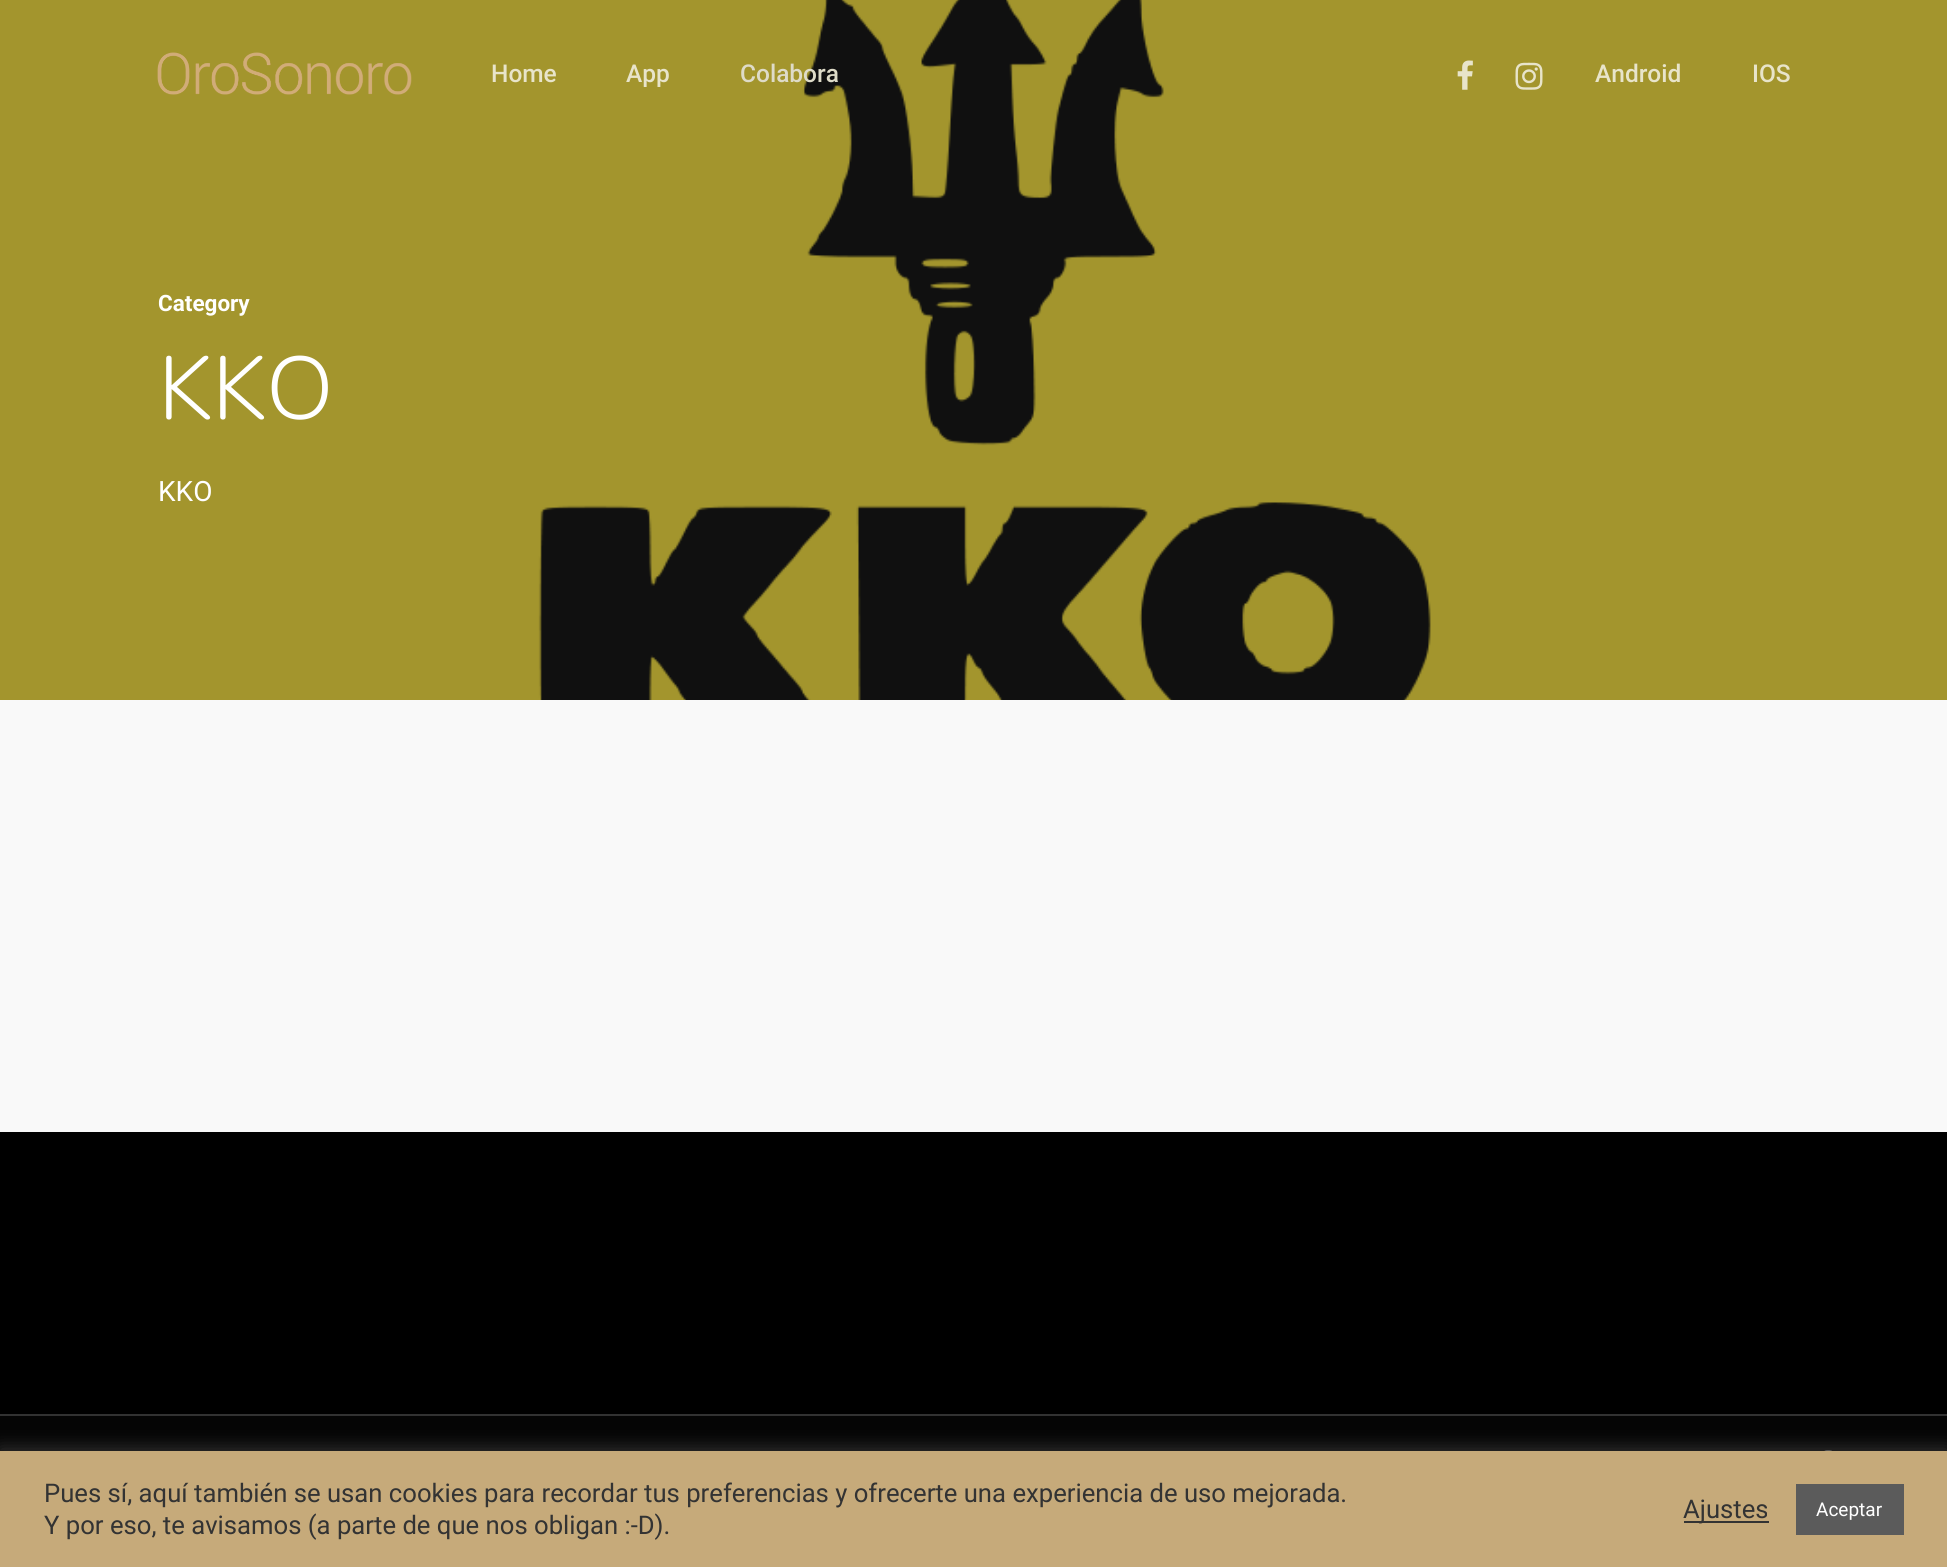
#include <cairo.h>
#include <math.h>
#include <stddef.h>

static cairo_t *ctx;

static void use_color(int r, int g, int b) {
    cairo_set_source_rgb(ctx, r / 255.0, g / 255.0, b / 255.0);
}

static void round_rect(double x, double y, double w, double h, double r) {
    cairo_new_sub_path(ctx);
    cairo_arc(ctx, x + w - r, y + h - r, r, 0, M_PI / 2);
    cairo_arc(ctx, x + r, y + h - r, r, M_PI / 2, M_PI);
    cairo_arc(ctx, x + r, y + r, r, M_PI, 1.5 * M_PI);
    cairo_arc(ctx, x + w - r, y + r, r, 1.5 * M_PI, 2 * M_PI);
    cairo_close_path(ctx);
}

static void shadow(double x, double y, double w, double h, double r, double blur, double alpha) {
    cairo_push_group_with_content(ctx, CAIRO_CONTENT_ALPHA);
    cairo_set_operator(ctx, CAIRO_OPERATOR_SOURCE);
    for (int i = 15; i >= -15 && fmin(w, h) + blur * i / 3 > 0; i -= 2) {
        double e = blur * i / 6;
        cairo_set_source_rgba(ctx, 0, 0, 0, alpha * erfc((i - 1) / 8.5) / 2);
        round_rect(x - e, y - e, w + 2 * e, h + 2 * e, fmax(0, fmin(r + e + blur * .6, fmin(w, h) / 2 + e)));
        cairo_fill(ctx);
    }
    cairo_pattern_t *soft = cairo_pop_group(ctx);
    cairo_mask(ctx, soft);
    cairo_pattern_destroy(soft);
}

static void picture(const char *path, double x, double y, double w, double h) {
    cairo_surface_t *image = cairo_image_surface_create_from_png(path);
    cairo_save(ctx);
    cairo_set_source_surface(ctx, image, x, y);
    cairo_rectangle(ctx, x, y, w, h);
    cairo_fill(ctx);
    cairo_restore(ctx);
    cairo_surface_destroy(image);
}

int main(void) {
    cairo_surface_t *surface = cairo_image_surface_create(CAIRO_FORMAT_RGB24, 1947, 1567);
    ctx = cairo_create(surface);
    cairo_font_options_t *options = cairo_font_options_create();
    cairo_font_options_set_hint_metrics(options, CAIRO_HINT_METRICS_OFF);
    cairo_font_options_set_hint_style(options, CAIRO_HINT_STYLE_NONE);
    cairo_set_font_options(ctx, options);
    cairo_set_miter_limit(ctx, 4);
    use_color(249, 249, 249);
    cairo_paint(ctx);
    picture("img4.png", 0, 0, 1947, 700);
    picture("img1.png", 157, 52, 255, 43);
    cairo_select_font_face(ctx, "Roboto Medium", CAIRO_FONT_SLANT_NORMAL, CAIRO_FONT_WEIGHT_NORMAL);
    cairo_set_font_size(ctx, 24.5);
    use_color(232, 228, 202);
    cairo_move_to(ctx, 491, 82);
    cairo_show_text(ctx, "Home");
    cairo_move_to(ctx, 626, 82);
    cairo_show_text(ctx, "App");
    use_color(222, 219, 200);
    cairo_move_to(ctx, 740, 82);
    cairo_show_text(ctx, "Colabora");
    picture("img2.png", 1457, 60, 16, 30);
    picture("img3.png", 1515, 62, 28, 28);
    use_color(232, 228, 202);
    cairo_move_to(ctx, 1595, 82);
    cairo_show_text(ctx, "Android");
    cairo_move_to(ctx, 1752, 82);
    cairo_show_text(ctx, "IOS");
    cairo_select_font_face(ctx, "Roboto", CAIRO_FONT_SLANT_NORMAL, CAIRO_FONT_WEIGHT_BOLD);
    cairo_set_font_size(ctx, 22.5);
    use_color(255, 255, 255);
    cairo_move_to(ctx, 158, 311);
    cairo_show_text(ctx, "Category");
    cairo_select_font_face(ctx, "Nunito Light", CAIRO_FONT_SLANT_NORMAL, CAIRO_FONT_WEIGHT_NORMAL);
    cairo_set_font_size(ctx, 89);
    cairo_move_to(ctx, 158, 419);
    cairo_show_text(ctx, "KKO");
    cairo_select_font_face(ctx, "Roboto", CAIRO_FONT_SLANT_NORMAL, CAIRO_FONT_WEIGHT_NORMAL);
    cairo_set_font_size(ctx, 28);
    cairo_move_to(ctx, 158, 501);
    cairo_show_text(ctx, "KKO");
    use_color(0, 0, 0);
    cairo_rectangle(ctx, 0, 1132, 1947, 282);
    cairo_fill(ctx);
    use_color(5, 5, 5);
    cairo_rectangle(ctx, 0, 1416, 1947, 35);
    cairo_fill(ctx);
    use_color(50, 50, 50);
    cairo_rectangle(ctx, 0, 1414, 1947, 2);
    cairo_fill(ctx);
    picture("img5.png", 1824, 1450, 8, 1);
    use_color(172, 171, 171);
    shadow(0, 1449, 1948, 117, 0, 9, 0.3);
    use_color(198, 170, 122);
    cairo_rectangle(ctx, 0, 1451, 1947, 116);
    cairo_fill(ctx);
    cairo_set_font_size(ctx, 25.67);
    use_color(51, 51, 51);
    cairo_move_to(ctx, 44, 1502);
    cairo_show_text(ctx, "Pues sí, aquí también se usan cookies para recordar tus preferencias y ofrecerte una experiencia de uso mejorada.");
    cairo_move_to(ctx, 44, 1534);
    cairo_show_text(ctx, "Y por eso, te avisamos (a parte de que nos obligan :-D).");
    cairo_rectangle(ctx, 1684, 1521, 85, 2);
    cairo_fill(ctx);
    cairo_move_to(ctx, 1683, 1518);
    cairo_show_text(ctx, "Ajustes");
    use_color(91, 91, 91);
    cairo_rectangle(ctx, 1796, 1484, 108, 51);
    cairo_fill(ctx);
    cairo_set_font_size(ctx, 19);
    use_color(255, 255, 255);
    cairo_move_to(ctx, 1816, 1516);
    cairo_show_text(ctx, "Aceptar");
    cairo_surface_write_to_png(surface, "result.png");
    cairo_font_options_destroy(options);
    cairo_destroy(ctx);
    cairo_surface_destroy(surface);
    return 0;
}
